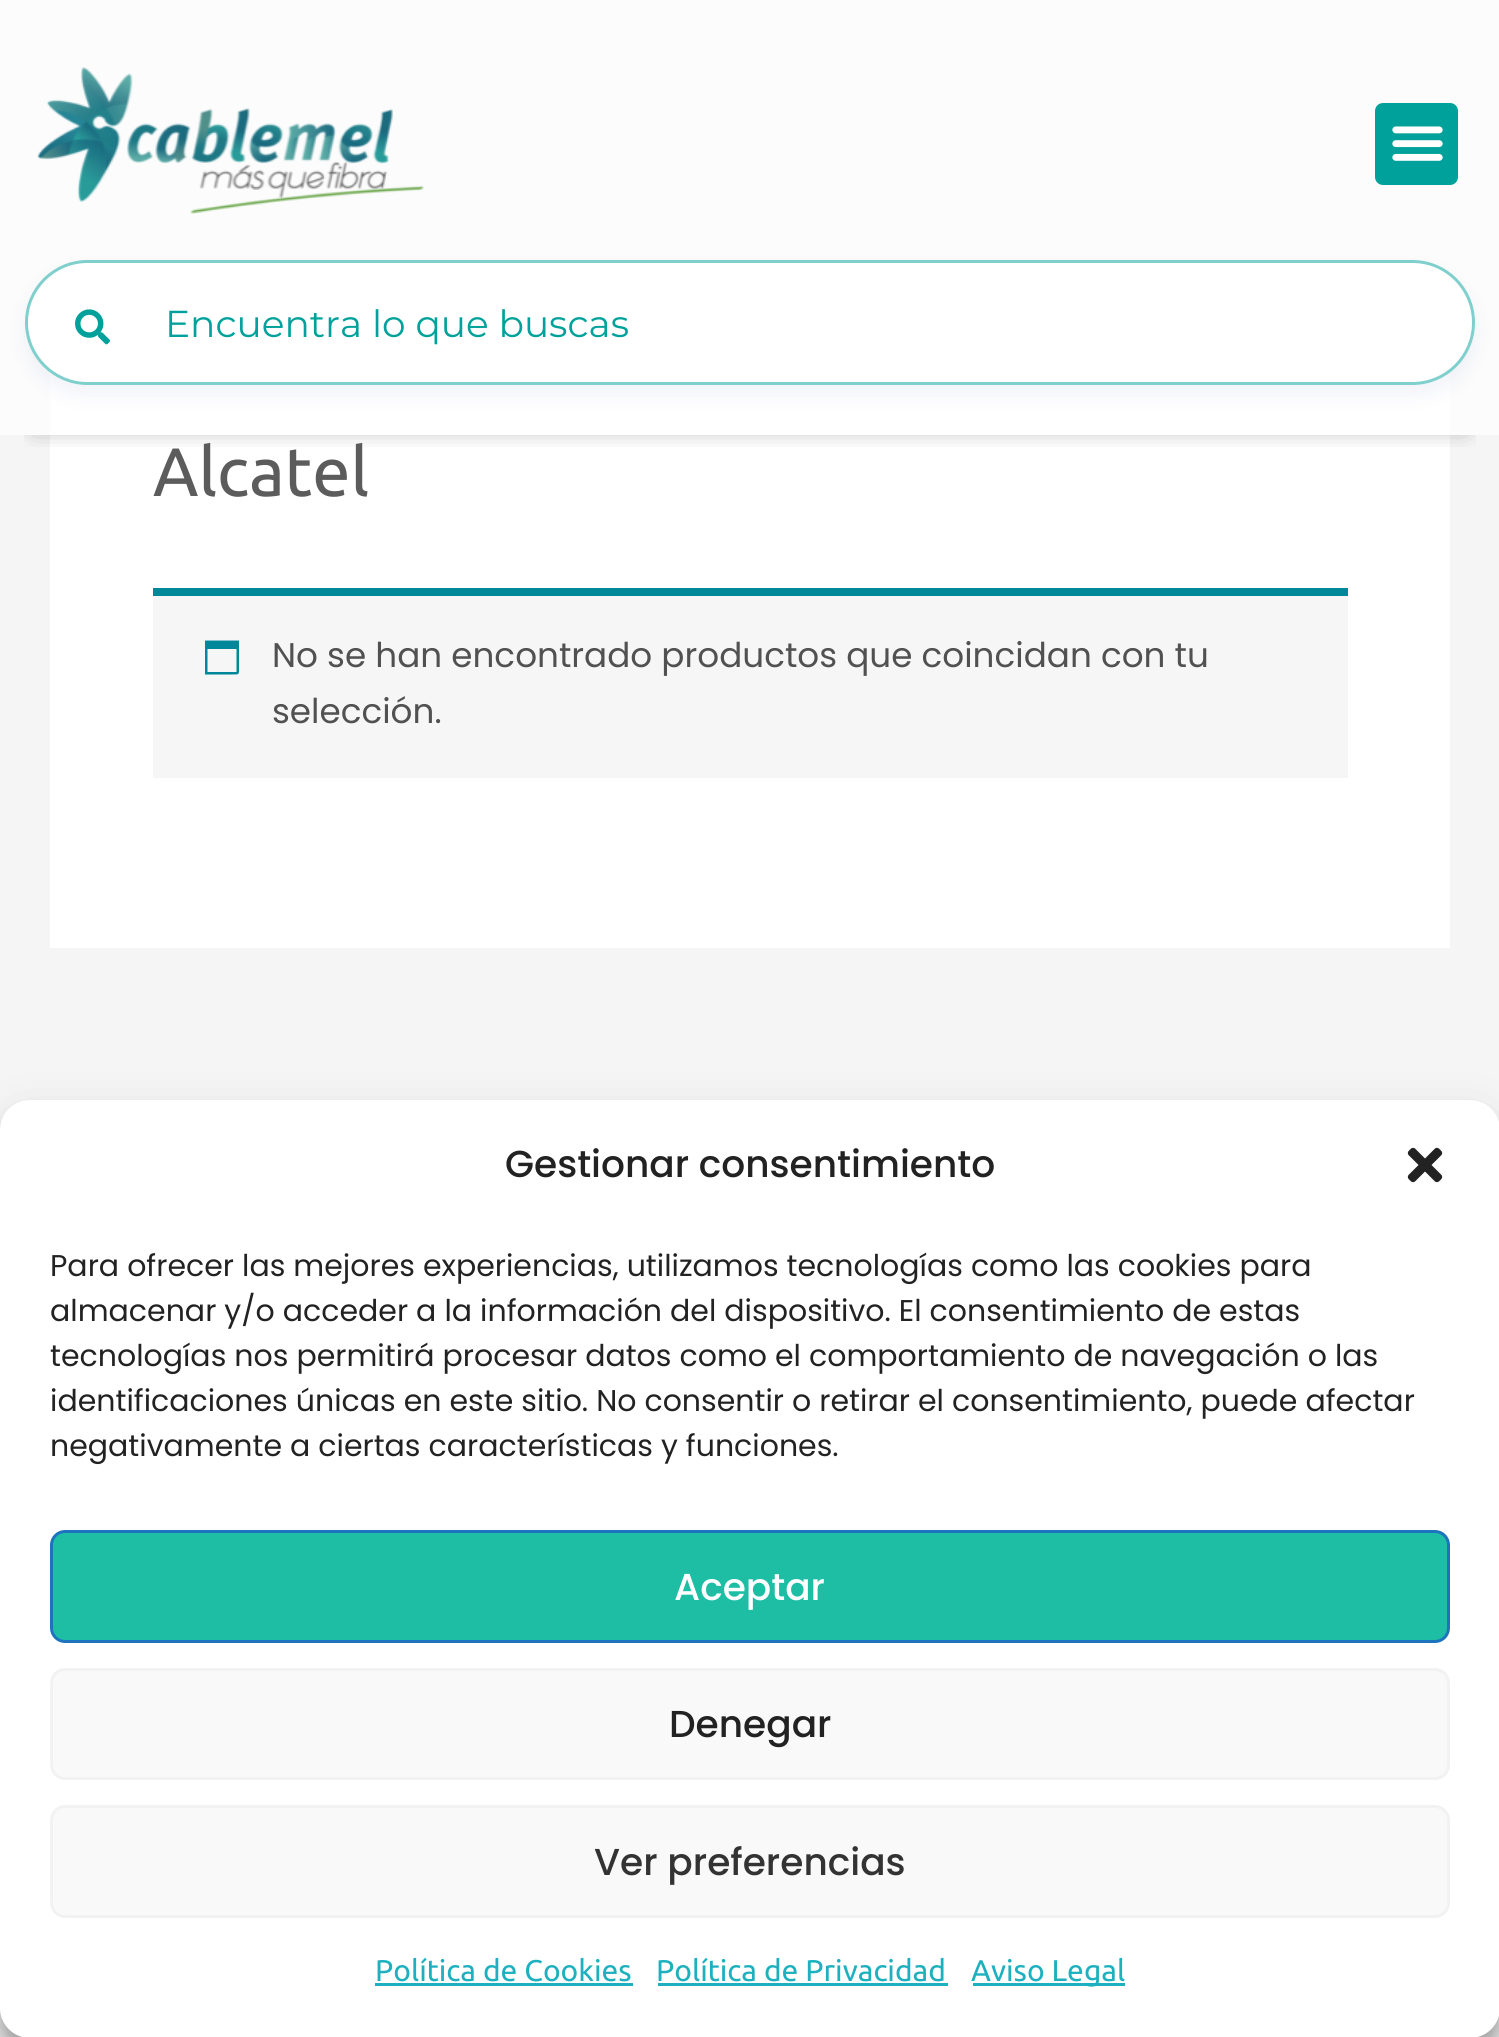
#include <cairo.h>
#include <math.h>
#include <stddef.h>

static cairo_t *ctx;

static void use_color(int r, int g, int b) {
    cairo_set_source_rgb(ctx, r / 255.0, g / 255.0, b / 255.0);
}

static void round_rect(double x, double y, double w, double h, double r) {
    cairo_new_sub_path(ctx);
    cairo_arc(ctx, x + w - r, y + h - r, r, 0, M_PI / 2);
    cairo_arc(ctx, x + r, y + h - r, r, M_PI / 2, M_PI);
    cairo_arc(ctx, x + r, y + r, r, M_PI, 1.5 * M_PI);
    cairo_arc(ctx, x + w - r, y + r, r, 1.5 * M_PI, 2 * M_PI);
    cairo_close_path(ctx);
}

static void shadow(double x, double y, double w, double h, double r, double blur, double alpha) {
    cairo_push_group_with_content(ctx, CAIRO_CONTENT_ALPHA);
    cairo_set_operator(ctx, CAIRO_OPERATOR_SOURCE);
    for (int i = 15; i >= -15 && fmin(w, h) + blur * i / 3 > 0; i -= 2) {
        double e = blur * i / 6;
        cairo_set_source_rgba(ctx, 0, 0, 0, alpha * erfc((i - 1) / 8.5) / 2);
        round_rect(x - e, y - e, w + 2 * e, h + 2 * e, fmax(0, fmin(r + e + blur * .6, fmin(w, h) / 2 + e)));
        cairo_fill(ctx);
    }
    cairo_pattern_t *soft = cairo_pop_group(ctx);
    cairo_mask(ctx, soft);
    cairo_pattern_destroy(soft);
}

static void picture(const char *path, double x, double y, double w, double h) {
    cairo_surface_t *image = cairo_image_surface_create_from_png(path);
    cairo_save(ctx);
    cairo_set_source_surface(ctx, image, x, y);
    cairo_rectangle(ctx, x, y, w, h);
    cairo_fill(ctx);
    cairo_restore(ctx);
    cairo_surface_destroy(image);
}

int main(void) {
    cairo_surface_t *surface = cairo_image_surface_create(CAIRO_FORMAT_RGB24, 1499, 2037);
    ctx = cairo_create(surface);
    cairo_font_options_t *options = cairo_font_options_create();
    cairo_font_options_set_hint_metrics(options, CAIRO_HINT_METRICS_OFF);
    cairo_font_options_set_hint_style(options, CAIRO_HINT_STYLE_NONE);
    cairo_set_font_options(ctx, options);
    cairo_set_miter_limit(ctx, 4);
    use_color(245, 245, 245);
    cairo_paint(ctx);
    use_color(252, 252, 252);
    cairo_rectangle(ctx, 0, 0, 1499, 435);
    cairo_fill(ctx);
    use_color(255, 255, 255);
    cairo_rectangle(ctx, 50, 372, 1400, 576);
    cairo_fill(ctx);
    cairo_save(ctx);
    cairo_rectangle(ctx, 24, 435, 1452, 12);
    cairo_clip(ctx);
    use_color(0, 0, 0);
    shadow(35, 60, 1430, 365, 0, 12.5, 0.5);
    cairo_restore(ctx);
    picture("img1.png", 37, 67, 387, 147);
    use_color(0, 161, 154);
    round_rect(1375, 103, 83, 82, 8);
    cairo_fill(ctx);
    picture("img2.png", 1392, 126, 51, 35);
    use_color(165, 174, 213);
    shadow(25, 270, 1450, 125, 62.5, 10, 0.15);
    use_color(255, 255, 255);
    round_rect(25, 260, 1450, 125, 62.5);
    cairo_fill(ctx);
    round_rect(26.5, 261.5, 1447, 122, 61);
    cairo_set_source_rgba(ctx, 0, 0.631, 0.604, 0.5);
    cairo_set_line_width(ctx, 3);
    cairo_stroke(ctx);
    picture("img3.png", 75, 309, 35, 36);
    cairo_select_font_face(ctx, "Montserrat", CAIRO_FONT_SLANT_NORMAL, CAIRO_FONT_WEIGHT_NORMAL);
    cairo_set_font_size(ctx, 37.5);
    use_color(0, 161, 154);
    cairo_move_to(ctx, 165, 337);
    cairo_show_text(ctx, "Encuentra lo que buscas");
    cairo_select_font_face(ctx, "Ubuntu", CAIRO_FONT_SLANT_NORMAL, CAIRO_FONT_WEIGHT_NORMAL);
    cairo_set_font_size(ctx, 68.5);
    use_color(93, 92, 92);
    cairo_move_to(ctx, 153, 496);
    cairo_show_text(ctx, "Alcatel");
    use_color(247, 246, 247);
    cairo_rectangle(ctx, 153, 596, 1195, 182);
    cairo_fill(ctx);
    use_color(0, 136, 154);
    cairo_rectangle(ctx, 153, 588, 1195, 8);
    cairo_fill(ctx);
    cairo_new_path(ctx);
    cairo_move_to(ctx, 236.5, 649);
    cairo_line_to(ctx, 207.5, 649);
    cairo_line_to(ctx, 207.5, 672);
    cairo_line_to(ctx, 236.5, 672);
    cairo_close_path(ctx);
    cairo_move_to(ctx, 239, 640.5);
    cairo_line_to(ctx, 239, 666.5);
    cairo_curve_to(ctx, 239, 675, 240, 674.5, 231.5, 674.5);
    cairo_line_to(ctx, 205, 674.5);
    cairo_line_to(ctx, 205, 640.5);
    cairo_close_path(ctx);
    cairo_fill(ctx);
    cairo_select_font_face(ctx, "Poppins", CAIRO_FONT_SLANT_NORMAL, CAIRO_FONT_WEIGHT_NORMAL);
    cairo_set_font_size(ctx, 34.2);
    use_color(81, 81, 81);
    cairo_move_to(ctx, 272, 667);
    cairo_show_text(ctx, "No se han encontrado productos que coincidan con tu");
    cairo_move_to(ctx, 272, 723);
    cairo_show_text(ctx, "selección.");
    use_color(0, 0, 0);
    shadow(0, 1115, 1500, 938, 30, 7.5, 0.23);
    shadow(0, 1125, 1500, 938, 30, 25, 0.19);
    use_color(255, 255, 255);
    round_rect(0, 1100, 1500, 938, 30);
    cairo_fill(ctx);
    cairo_select_font_face(ctx, "Poppins Medium", CAIRO_FONT_SLANT_NORMAL, CAIRO_FONT_WEIGHT_NORMAL);
    cairo_set_font_size(ctx, 37.5);
    use_color(34, 34, 34);
    cairo_move_to(ctx, 505, 1177);
    cairo_show_text(ctx, "Gestionar consentimiento");
    picture("img4.png", 1407, 1147, 36, 36);
    cairo_select_font_face(ctx, "Poppins", CAIRO_FONT_SLANT_NORMAL, CAIRO_FONT_WEIGHT_NORMAL);
    cairo_set_font_size(ctx, 30);
    cairo_move_to(ctx, 50, 1276);
    cairo_show_text(ctx, "Para ofrecer las mejores experiencias, utilizamos tecnologías como las cookies para");
    cairo_move_to(ctx, 50, 1321);
    cairo_show_text(ctx, "almacenar y/o acceder a la información del dispositivo. El consentimiento de estas");
    cairo_move_to(ctx, 50, 1366);
    cairo_show_text(ctx, "tecnologías nos permitirá procesar datos como el comportamiento de navegación o las");
    cairo_move_to(ctx, 50, 1411);
    cairo_show_text(ctx, "identificaciones únicas en este sitio. No consentir o retirar el consentimiento, puede afectar");
    cairo_move_to(ctx, 50, 1456);
    cairo_show_text(ctx, "negativamente a ciertas características y funciones.");
    use_color(30, 190, 165);
    round_rect(51.5, 1531.5, 1397, 110, 13.5);
    cairo_fill_preserve(ctx);
    use_color(30, 115, 190);
    cairo_stroke(ctx);
    cairo_select_font_face(ctx, "Poppins Medium", CAIRO_FONT_SLANT_NORMAL, CAIRO_FONT_WEIGHT_NORMAL);
    cairo_set_font_size(ctx, 37.5);
    use_color(255, 255, 255);
    cairo_move_to(ctx, 674, 1600);
    cairo_show_text(ctx, "Aceptar");
    use_color(249, 249, 249);
    round_rect(51.5, 1669.5, 1397, 109, 13.5);
    cairo_fill_preserve(ctx);
    use_color(242, 242, 242);
    cairo_stroke(ctx);
    use_color(34, 34, 34);
    cairo_move_to(ctx, 669, 1737);
    cairo_show_text(ctx, "Denegar");
    use_color(249, 249, 249);
    round_rect(51.5, 1806.5, 1397, 110, 13.5);
    cairo_fill_preserve(ctx);
    use_color(242, 242, 242);
    cairo_stroke(ctx);
    use_color(51, 51, 51);
    cairo_move_to(ctx, 594, 1875);
    cairo_show_text(ctx, "Ver preferencias");
    cairo_select_font_face(ctx, "Ubuntu", CAIRO_FONT_SLANT_NORMAL, CAIRO_FONT_WEIGHT_NORMAL);
    cairo_set_font_size(ctx, 30);
    use_color(30, 176, 190);
    cairo_move_to(ctx, 375, 1981);
    cairo_show_text(ctx, "Política de Cookies");
    cairo_rectangle(ctx, 375, 1983, 258, 3);
    cairo_fill(ctx);
    cairo_move_to(ctx, 656, 1981);
    cairo_show_text(ctx, "Política de Privacidad");
    cairo_rectangle(ctx, 658, 1983, 290, 3);
    cairo_fill(ctx);
    cairo_rectangle(ctx, 973, 1983, 152, 3);
    cairo_fill(ctx);
    cairo_move_to(ctx, 971, 1981);
    cairo_show_text(ctx, "Aviso Legal");
    cairo_surface_write_to_png(surface, "result.png");
    cairo_font_options_destroy(options);
    cairo_destroy(ctx);
    cairo_surface_destroy(surface);
    return 0;
}
